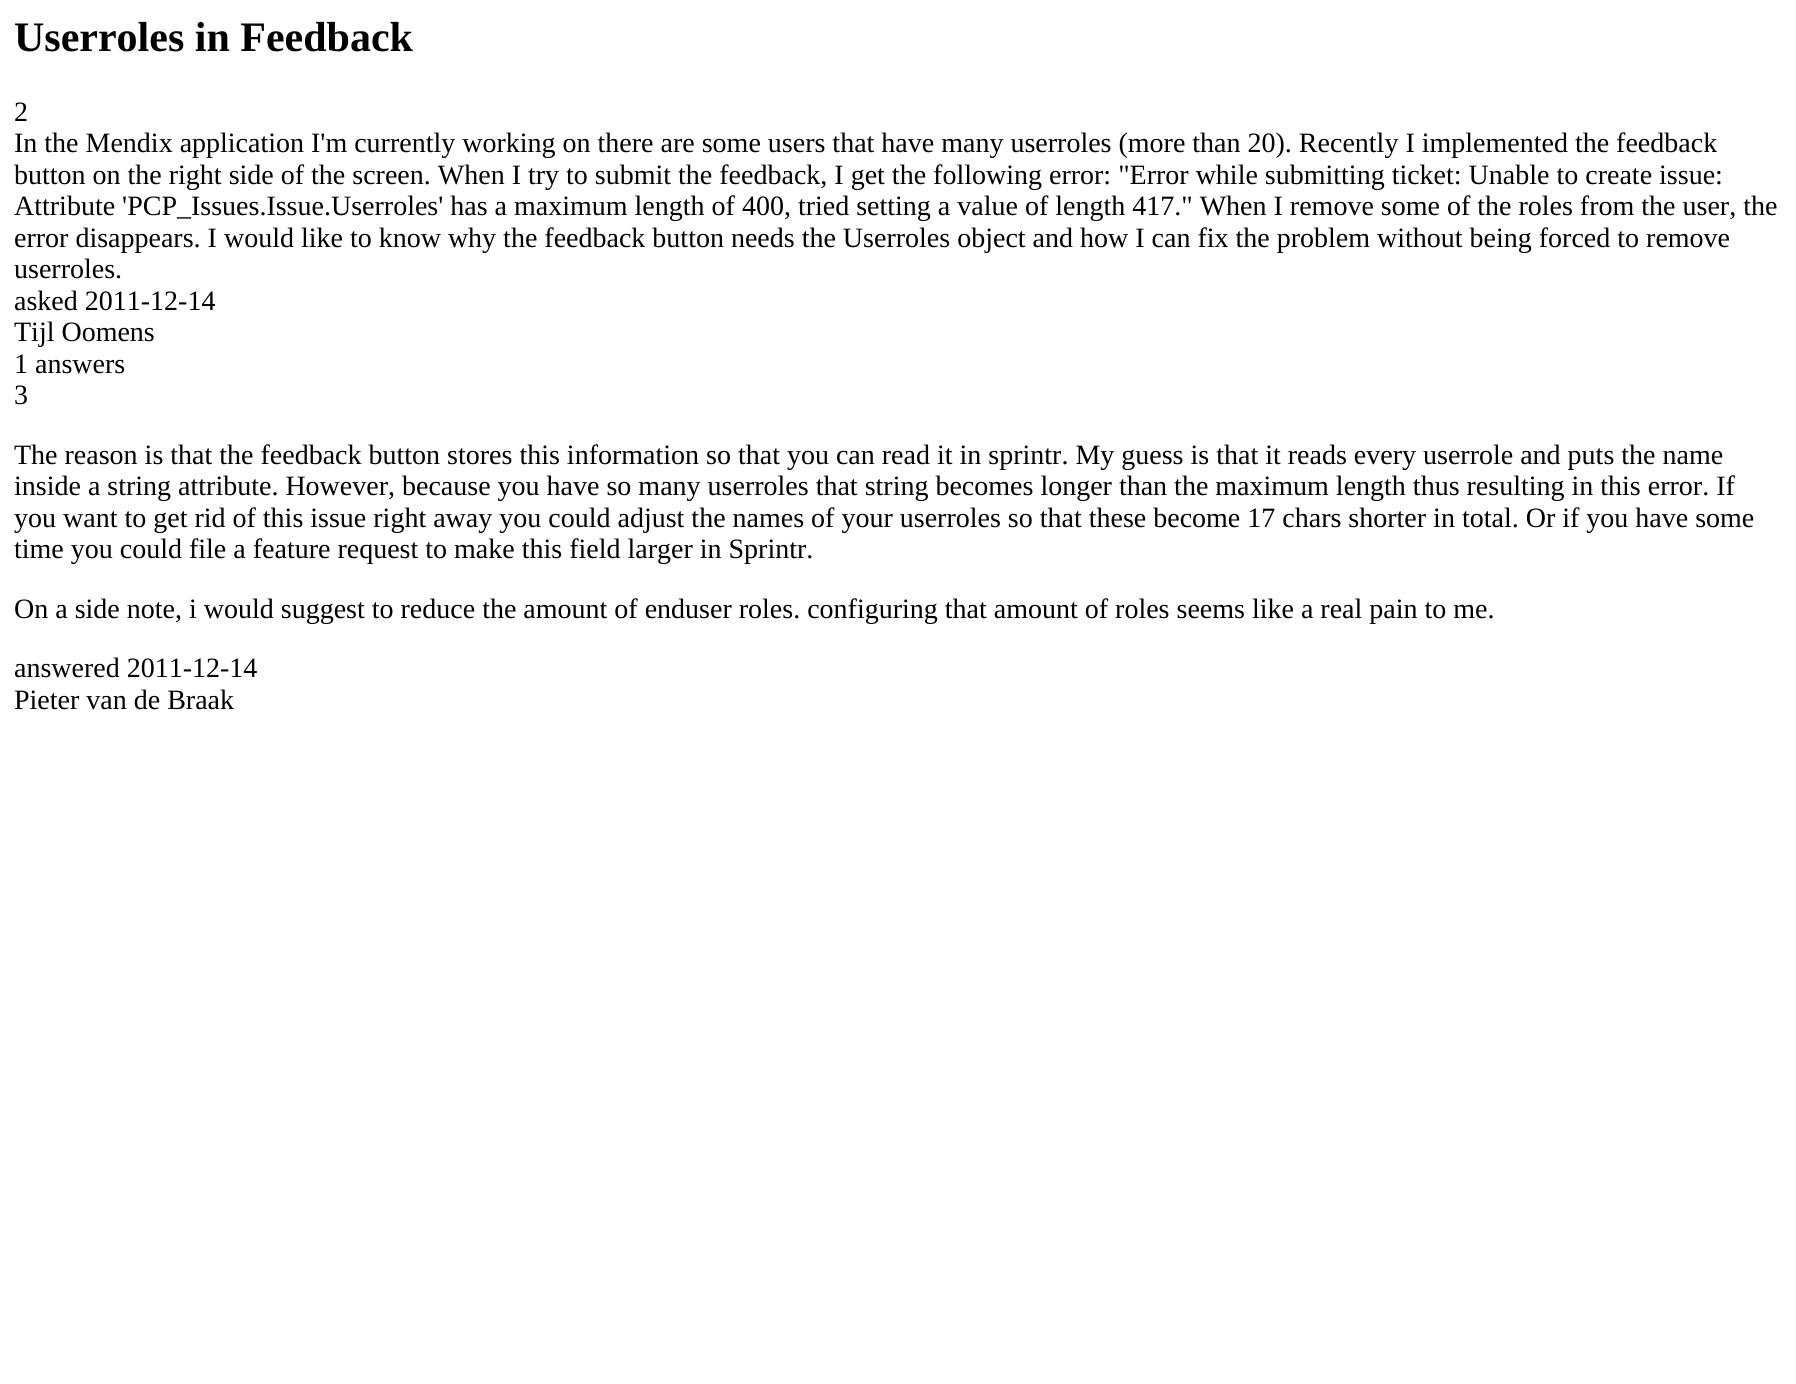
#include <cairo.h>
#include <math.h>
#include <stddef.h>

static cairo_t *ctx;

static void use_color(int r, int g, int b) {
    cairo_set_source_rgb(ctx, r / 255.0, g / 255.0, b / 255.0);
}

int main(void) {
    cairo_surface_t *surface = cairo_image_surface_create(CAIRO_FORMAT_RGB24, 1796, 1384);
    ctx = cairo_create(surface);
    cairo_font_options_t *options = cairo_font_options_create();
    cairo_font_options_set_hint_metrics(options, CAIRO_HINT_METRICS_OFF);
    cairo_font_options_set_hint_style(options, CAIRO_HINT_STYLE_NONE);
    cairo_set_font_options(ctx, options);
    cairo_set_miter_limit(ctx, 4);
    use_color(255, 255, 255);
    cairo_paint(ctx);
    cairo_select_font_face(ctx, "Liberation Serif", CAIRO_FONT_SLANT_NORMAL, CAIRO_FONT_WEIGHT_BOLD);
    cairo_set_font_size(ctx, 42);
    use_color(0, 0, 0);
    cairo_move_to(ctx, 14, 51);
    cairo_show_text(ctx, "Userroles in Feedback");
    cairo_select_font_face(ctx, "Liberation Serif", CAIRO_FONT_SLANT_NORMAL, CAIRO_FONT_WEIGHT_NORMAL);
    cairo_set_font_size(ctx, 28);
    cairo_move_to(ctx, 14, 121);
    cairo_show_text(ctx, "2");
    cairo_move_to(ctx, 14, 152);
    cairo_show_text(ctx, "In the Mendix application I'm currently working on there are some users that have many userroles (more than 20). Recently I implemented the feedback");
    cairo_move_to(ctx, 14, 184);
    cairo_show_text(ctx, "button on the right side of the screen. When I try to submit the feedback, I get the following error: \"Error while submitting ticket: Unable to create issue:");
    cairo_move_to(ctx, 14, 215);
    cairo_show_text(ctx, "Attribute 'PCP_Issues.Issue.Userroles' has a maximum length of 400, tried setting a value of length 417.\" When I remove some of the roles from the user, the");
    cairo_move_to(ctx, 14, 247);
    cairo_show_text(ctx, "error disappears. I would like to know why the feedback button needs the Userroles object and how I can fix the problem without being forced to remove");
    cairo_move_to(ctx, 14, 278);
    cairo_show_text(ctx, "userroles.");
    cairo_move_to(ctx, 14, 310);
    cairo_show_text(ctx, "asked 2011-12-14");
    cairo_move_to(ctx, 14, 341);
    cairo_show_text(ctx, "Tijl Oomens");
    cairo_move_to(ctx, 14, 373);
    cairo_show_text(ctx, "1 answers");
    cairo_move_to(ctx, 14, 404);
    cairo_show_text(ctx, "3");
    cairo_move_to(ctx, 14, 464);
    cairo_show_text(ctx, "The reason is that the feedback button stores this information so that you can read it in sprintr. My guess is that it reads every userrole and puts the name");
    cairo_move_to(ctx, 14, 495);
    cairo_show_text(ctx, "inside a string attribute. However, because you have so many userroles that string becomes longer than the maximum length thus resulting in this error. If");
    cairo_move_to(ctx, 14, 527);
    cairo_show_text(ctx, "you want to get rid of this issue right away you could adjust the names of your userroles so that these become 17 chars shorter in total. Or if you have some");
    cairo_move_to(ctx, 14, 558);
    cairo_show_text(ctx, "time you could file a feature request to make this field larger in Sprintr.");
    cairo_move_to(ctx, 14, 618);
    cairo_show_text(ctx, "On a side note, i would suggest to reduce the amount of enduser roles. configuring that amount of roles seems like a real pain to me.");
    cairo_move_to(ctx, 14, 677);
    cairo_show_text(ctx, "answered 2011-12-14");
    cairo_move_to(ctx, 14, 709);
    cairo_show_text(ctx, "Pieter van de Braak");
    cairo_surface_write_to_png(surface, "result.png");
    cairo_font_options_destroy(options);
    cairo_destroy(ctx);
    cairo_surface_destroy(surface);
    return 0;
}
